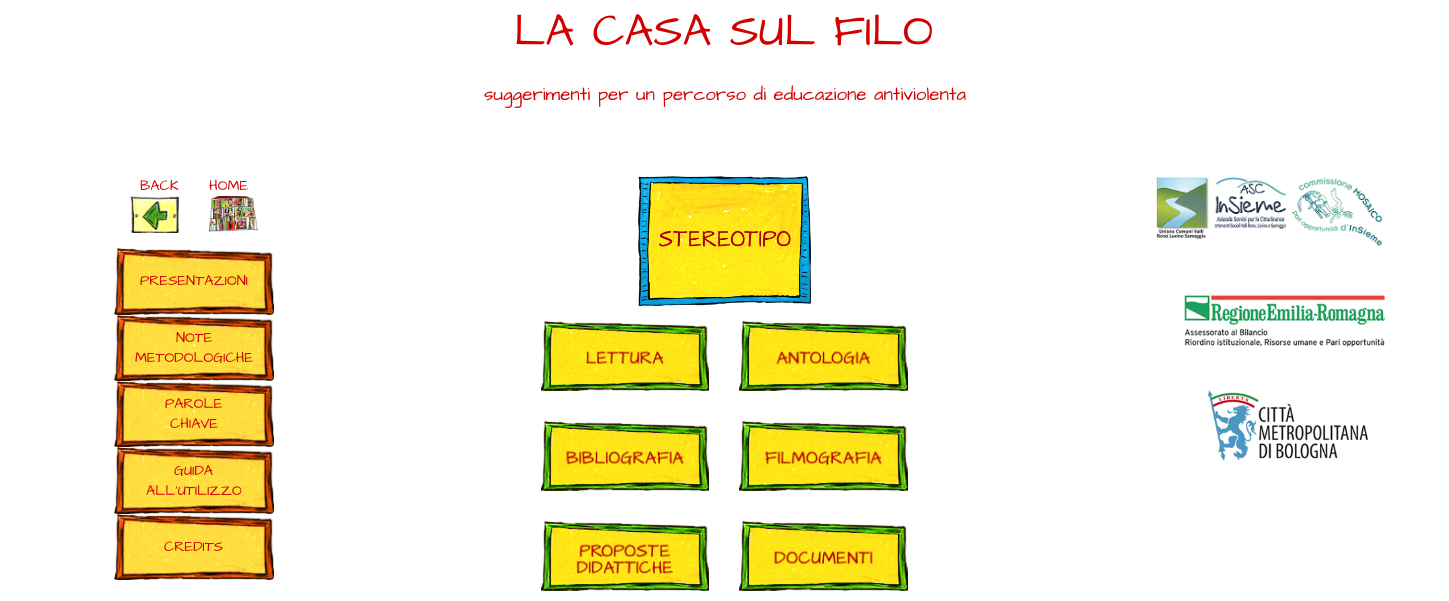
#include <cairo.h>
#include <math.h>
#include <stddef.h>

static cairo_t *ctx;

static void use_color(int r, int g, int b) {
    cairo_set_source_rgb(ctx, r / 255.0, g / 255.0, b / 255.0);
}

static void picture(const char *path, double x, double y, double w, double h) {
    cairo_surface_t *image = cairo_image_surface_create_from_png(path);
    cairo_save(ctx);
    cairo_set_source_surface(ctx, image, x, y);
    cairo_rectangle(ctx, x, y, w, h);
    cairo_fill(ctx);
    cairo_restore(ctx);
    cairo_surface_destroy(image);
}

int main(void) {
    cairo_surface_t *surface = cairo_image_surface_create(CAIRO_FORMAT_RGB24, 1449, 601);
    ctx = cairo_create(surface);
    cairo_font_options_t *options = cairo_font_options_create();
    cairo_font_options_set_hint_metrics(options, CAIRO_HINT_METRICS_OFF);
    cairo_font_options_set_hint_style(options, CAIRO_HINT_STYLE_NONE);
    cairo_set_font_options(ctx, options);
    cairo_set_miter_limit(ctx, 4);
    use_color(255, 255, 255);
    cairo_paint(ctx);
    cairo_select_font_face(ctx, "Architects Daughter", CAIRO_FONT_SLANT_NORMAL, CAIRO_FONT_WEIGHT_NORMAL);
    cairo_set_font_size(ctx, 45.25);
    use_color(211, 0, 0);
    cairo_move_to(ctx, 514, 45);
    cairo_show_text(ctx, "LA CASA SUL FILO");
    cairo_set_font_size(ctx, 18.75);
    cairo_move_to(ctx, 484, 100);
    cairo_show_text(ctx, "suggerimenti per un percorso di educazione antiviolenta");
    cairo_set_font_size(ctx, 14.5);
    cairo_move_to(ctx, 140, 190);
    cairo_show_text(ctx, "BACK");
    picture("img1.png", 130, 196, 49, 37);
    cairo_move_to(ctx, 209, 190);
    cairo_show_text(ctx, "HOME");
    picture("img2.png", 209, 196, 49, 36);
    picture("img3.png", 114, 248, 160, 67);
    cairo_move_to(ctx, 140, 285);
    cairo_show_text(ctx, "PRESENTAZIONI");
    picture("img4.png", 114, 315, 160, 66);
    cairo_move_to(ctx, 176, 342);
    cairo_show_text(ctx, "NOTE");
    cairo_move_to(ctx, 135, 362);
    cairo_show_text(ctx, "METODOLOGICHE");
    picture("img4.png", 114, 381, 160, 66);
    cairo_move_to(ctx, 165, 408);
    cairo_show_text(ctx, "PAROLE");
    cairo_move_to(ctx, 170, 428);
    cairo_show_text(ctx, "CHIAVE");
    picture("img5.png", 114, 447, 160, 67);
    cairo_move_to(ctx, 174, 475);
    cairo_show_text(ctx, "GUIDA");
    cairo_move_to(ctx, 146, 495);
    cairo_show_text(ctx, "ALL'UTILIZZO");
    picture("img4.png", 114, 514, 160, 66);
    cairo_move_to(ctx, 164, 551);
    cairo_show_text(ctx, "CREDITS");
    picture("img6.png", 638, 176, 173, 130);
    picture("img7.png", 541, 321, 168, 70);
    picture("img8.png", 739, 321, 169, 70);
    picture("img9.png", 541, 421, 168, 70);
    picture("img10.png", 739, 421, 169, 70);
    picture("img11.png", 541, 521, 168, 70);
    picture("img12.png", 739, 521, 169, 70);
    picture("img13.png", 1156, 177, 227, 70);
    picture("img14.png", 1184, 295, 201, 52);
    picture("img15.png", 1207, 390, 162, 71);
    cairo_surface_write_to_png(surface, "result.png");
    cairo_font_options_destroy(options);
    cairo_destroy(ctx);
    cairo_surface_destroy(surface);
    return 0;
}
